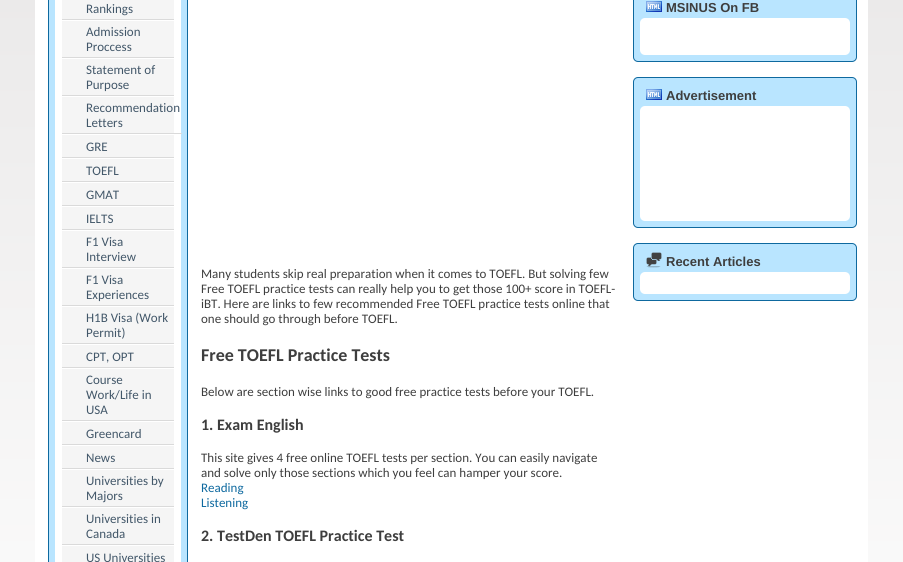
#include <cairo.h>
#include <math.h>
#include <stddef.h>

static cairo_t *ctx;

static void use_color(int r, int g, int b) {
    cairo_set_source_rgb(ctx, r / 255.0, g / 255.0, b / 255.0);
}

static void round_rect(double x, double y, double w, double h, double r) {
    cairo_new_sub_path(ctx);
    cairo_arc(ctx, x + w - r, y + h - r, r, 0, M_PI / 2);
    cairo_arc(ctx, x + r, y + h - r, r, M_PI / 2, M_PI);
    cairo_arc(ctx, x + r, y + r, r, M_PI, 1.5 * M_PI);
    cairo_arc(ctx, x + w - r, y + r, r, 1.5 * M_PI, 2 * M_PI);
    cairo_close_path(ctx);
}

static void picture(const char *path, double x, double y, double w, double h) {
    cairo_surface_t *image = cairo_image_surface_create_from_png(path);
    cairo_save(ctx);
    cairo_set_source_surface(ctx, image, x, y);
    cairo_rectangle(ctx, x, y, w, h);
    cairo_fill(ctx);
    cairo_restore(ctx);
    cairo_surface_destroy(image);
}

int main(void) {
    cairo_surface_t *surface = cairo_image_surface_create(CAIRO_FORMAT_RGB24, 903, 562);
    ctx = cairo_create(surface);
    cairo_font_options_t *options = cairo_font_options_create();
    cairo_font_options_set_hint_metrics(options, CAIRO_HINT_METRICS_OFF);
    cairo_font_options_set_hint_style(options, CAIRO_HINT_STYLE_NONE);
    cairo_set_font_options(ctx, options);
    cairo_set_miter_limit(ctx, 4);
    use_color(255, 255, 255);
    cairo_paint(ctx);
    picture("img1.png", 0, 0, 903, 562);
    use_color(255, 255, 255);
    cairo_rectangle(ctx, 35, 0, 833, 562);
    cairo_fill(ctx);
    use_color(185, 229, 255);
    cairo_rectangle(ctx, 48.5, -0.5, 139, 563);
    cairo_fill_preserve(ctx);
    use_color(14, 105, 159);
    cairo_set_line_width(ctx, 1);
    cairo_stroke(ctx);
    use_color(255, 255, 255);
    cairo_rectangle(ctx, 55, 0, 126, 562);
    cairo_fill(ctx);
    use_color(245, 245, 245);
    cairo_rectangle(ctx, 62, 0, 112, 562);
    cairo_fill(ctx);
    use_color(255, 255, 255);
    cairo_rectangle(ctx, 62, 20, 112, 1);
    cairo_fill(ctx);
    use_color(218, 218, 218);
    cairo_rectangle(ctx, 62, 19, 112, 1);
    cairo_fill(ctx);
    cairo_select_font_face(ctx, "Carlito", CAIRO_FONT_SLANT_NORMAL, CAIRO_FONT_WEIGHT_NORMAL);
    cairo_set_font_size(ctx, 13);
    use_color(66, 87, 105);
    cairo_move_to(ctx, 86, 13);
    cairo_show_text(ctx, "Rankings");
    use_color(255, 255, 255);
    cairo_rectangle(ctx, 62, 58, 112, 1);
    cairo_fill(ctx);
    use_color(218, 218, 218);
    cairo_rectangle(ctx, 62, 57, 112, 1);
    cairo_fill(ctx);
    use_color(66, 87, 105);
    cairo_move_to(ctx, 86, 36);
    cairo_show_text(ctx, "Admission");
    cairo_move_to(ctx, 86, 51);
    cairo_show_text(ctx, "Proccess");
    use_color(255, 255, 255);
    cairo_rectangle(ctx, 62, 96, 112, 1);
    cairo_fill(ctx);
    use_color(218, 218, 218);
    cairo_rectangle(ctx, 62, 95, 112, 1);
    cairo_fill(ctx);
    use_color(66, 87, 105);
    cairo_move_to(ctx, 86, 74);
    cairo_show_text(ctx, "Statement of");
    cairo_move_to(ctx, 86, 89);
    cairo_show_text(ctx, "Purpose");
    use_color(255, 255, 255);
    cairo_rectangle(ctx, 62, 134, 112, 1);
    cairo_fill(ctx);
    use_color(218, 218, 218);
    cairo_rectangle(ctx, 62, 133, 120, 1);
    cairo_fill(ctx);
    use_color(66, 87, 105);
    cairo_move_to(ctx, 86, 112);
    cairo_show_text(ctx, "Recommendation");
    cairo_move_to(ctx, 86, 127);
    cairo_show_text(ctx, "Letters");
    use_color(255, 255, 255);
    cairo_rectangle(ctx, 62, 158, 112, 1);
    cairo_fill(ctx);
    use_color(218, 218, 218);
    cairo_rectangle(ctx, 62, 157, 112, 1);
    cairo_fill(ctx);
    use_color(66, 87, 105);
    cairo_move_to(ctx, 86, 151);
    cairo_show_text(ctx, "GRE");
    use_color(255, 255, 255);
    cairo_rectangle(ctx, 62, 182, 112, 1);
    cairo_fill(ctx);
    use_color(218, 218, 218);
    cairo_rectangle(ctx, 62, 181, 112, 1);
    cairo_fill(ctx);
    use_color(66, 87, 105);
    cairo_move_to(ctx, 86, 175);
    cairo_show_text(ctx, "TOEFL");
    use_color(255, 255, 255);
    cairo_rectangle(ctx, 62, 206, 112, 1);
    cairo_fill(ctx);
    use_color(218, 218, 218);
    cairo_rectangle(ctx, 62, 205, 112, 1);
    cairo_fill(ctx);
    use_color(66, 87, 105);
    cairo_move_to(ctx, 86, 199);
    cairo_show_text(ctx, "GMAT");
    use_color(255, 255, 255);
    cairo_rectangle(ctx, 62, 230, 112, 1);
    cairo_fill(ctx);
    use_color(218, 218, 218);
    cairo_rectangle(ctx, 62, 229, 112, 1);
    cairo_fill(ctx);
    use_color(66, 87, 105);
    cairo_move_to(ctx, 86, 223);
    cairo_show_text(ctx, "IELTS");
    use_color(255, 255, 255);
    cairo_rectangle(ctx, 62, 268, 112, 1);
    cairo_fill(ctx);
    use_color(218, 218, 218);
    cairo_rectangle(ctx, 62, 267, 112, 1);
    cairo_fill(ctx);
    use_color(66, 87, 105);
    cairo_move_to(ctx, 86, 246);
    cairo_show_text(ctx, "F1 Visa");
    cairo_move_to(ctx, 86, 261);
    cairo_show_text(ctx, "Interview");
    use_color(255, 255, 255);
    cairo_rectangle(ctx, 62, 306, 112, 1);
    cairo_fill(ctx);
    use_color(218, 218, 218);
    cairo_rectangle(ctx, 62, 305, 112, 1);
    cairo_fill(ctx);
    use_color(66, 87, 105);
    cairo_move_to(ctx, 86, 284);
    cairo_show_text(ctx, "F1 Visa");
    cairo_move_to(ctx, 86, 299);
    cairo_show_text(ctx, "Experiences");
    use_color(255, 255, 255);
    cairo_rectangle(ctx, 62, 344, 112, 1);
    cairo_fill(ctx);
    use_color(218, 218, 218);
    cairo_rectangle(ctx, 62, 343, 112, 1);
    cairo_fill(ctx);
    use_color(66, 87, 105);
    cairo_move_to(ctx, 86, 322);
    cairo_show_text(ctx, "H1B Visa (Work");
    cairo_move_to(ctx, 86, 337);
    cairo_show_text(ctx, "Permit)");
    use_color(255, 255, 255);
    cairo_rectangle(ctx, 62, 368, 112, 1);
    cairo_fill(ctx);
    use_color(218, 218, 218);
    cairo_rectangle(ctx, 62, 367, 112, 1);
    cairo_fill(ctx);
    use_color(66, 87, 105);
    cairo_move_to(ctx, 86, 361);
    cairo_show_text(ctx, "CPT, OPT");
    use_color(255, 255, 255);
    cairo_rectangle(ctx, 62, 421, 112, 1);
    cairo_fill(ctx);
    use_color(218, 218, 218);
    cairo_rectangle(ctx, 62, 420, 112, 1);
    cairo_fill(ctx);
    use_color(66, 87, 105);
    cairo_move_to(ctx, 86, 384);
    cairo_show_text(ctx, "Course");
    cairo_move_to(ctx, 86, 399);
    cairo_show_text(ctx, "Work/Life in");
    cairo_move_to(ctx, 86, 414);
    cairo_show_text(ctx, "USA");
    use_color(255, 255, 255);
    cairo_rectangle(ctx, 62, 445, 112, 1);
    cairo_fill(ctx);
    use_color(218, 218, 218);
    cairo_rectangle(ctx, 62, 444, 112, 1);
    cairo_fill(ctx);
    use_color(66, 87, 105);
    cairo_move_to(ctx, 86, 438);
    cairo_show_text(ctx, "Greencard");
    use_color(255, 255, 255);
    cairo_rectangle(ctx, 62, 469, 112, 1);
    cairo_fill(ctx);
    use_color(218, 218, 218);
    cairo_rectangle(ctx, 62, 468, 112, 1);
    cairo_fill(ctx);
    use_color(66, 87, 105);
    cairo_move_to(ctx, 86, 462);
    cairo_show_text(ctx, "News");
    use_color(255, 255, 255);
    cairo_rectangle(ctx, 62, 507, 112, 1);
    cairo_fill(ctx);
    use_color(218, 218, 218);
    cairo_rectangle(ctx, 62, 506, 112, 1);
    cairo_fill(ctx);
    use_color(66, 87, 105);
    cairo_move_to(ctx, 86, 485);
    cairo_show_text(ctx, "Universities by");
    cairo_move_to(ctx, 86, 500);
    cairo_show_text(ctx, "Majors");
    use_color(255, 255, 255);
    cairo_rectangle(ctx, 62, 545, 112, 1);
    cairo_fill(ctx);
    use_color(218, 218, 218);
    cairo_rectangle(ctx, 62, 544, 112, 1);
    cairo_fill(ctx);
    use_color(66, 87, 105);
    cairo_move_to(ctx, 86, 523);
    cairo_show_text(ctx, "Universities in");
    cairo_move_to(ctx, 86, 538);
    cairo_show_text(ctx, "Canada");
    cairo_move_to(ctx, 86, 562);
    cairo_show_text(ctx, "US Universities");
    use_color(62, 62, 62);
    cairo_move_to(ctx, 201, 278);
    cairo_show_text(ctx, "Many students skip real preparation when it comes to TOEFL. But solving few");
    cairo_move_to(ctx, 201, 293);
    cairo_show_text(ctx, "Free TOEFL practice tests can really help you to get those 100+ score in TOEFL-");
    cairo_move_to(ctx, 201, 308);
    cairo_show_text(ctx, "iBT. Here are links to few recommended Free TOEFL practice tests online that");
    cairo_move_to(ctx, 201, 323);
    cairo_show_text(ctx, "one should go through before TOEFL.");
    cairo_select_font_face(ctx, "Carlito", CAIRO_FONT_SLANT_NORMAL, CAIRO_FONT_WEIGHT_BOLD);
    cairo_set_font_size(ctx, 18);
    cairo_move_to(ctx, 201, 361);
    cairo_show_text(ctx, "Free TOEFL Practice Tests");
    cairo_select_font_face(ctx, "Carlito", CAIRO_FONT_SLANT_NORMAL, CAIRO_FONT_WEIGHT_NORMAL);
    cairo_set_font_size(ctx, 13);
    cairo_move_to(ctx, 201, 396);
    cairo_show_text(ctx, "Below are section wise links to good free practice tests before your TOEFL.");
    cairo_select_font_face(ctx, "Carlito", CAIRO_FONT_SLANT_NORMAL, CAIRO_FONT_WEIGHT_BOLD);
    cairo_set_font_size(ctx, 16);
    cairo_move_to(ctx, 201, 430);
    cairo_show_text(ctx, "1. Exam English");
    cairo_select_font_face(ctx, "Carlito", CAIRO_FONT_SLANT_NORMAL, CAIRO_FONT_WEIGHT_NORMAL);
    cairo_set_font_size(ctx, 13);
    cairo_move_to(ctx, 201, 462);
    cairo_show_text(ctx, "This site gives 4 free online TOEFL tests per section. You can easily navigate");
    cairo_move_to(ctx, 201, 477);
    cairo_show_text(ctx, "and solve only those sections which you feel can hamper your score.");
    use_color(14, 105, 159);
    cairo_move_to(ctx, 201, 492);
    cairo_show_text(ctx, "Reading");
    cairo_move_to(ctx, 201, 507);
    cairo_show_text(ctx, "Listening");
    cairo_select_font_face(ctx, "Carlito", CAIRO_FONT_SLANT_NORMAL, CAIRO_FONT_WEIGHT_BOLD);
    cairo_set_font_size(ctx, 16);
    use_color(62, 62, 62);
    cairo_move_to(ctx, 201, 541);
    cairo_show_text(ctx, "2. TestDen TOEFL Practice Test");
    use_color(185, 229, 255);
    round_rect(633.5, -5.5, 223, 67, 4.5);
    cairo_fill_preserve(ctx);
    use_color(14, 105, 159);
    cairo_stroke(ctx);
    picture("img2.png", 646, 1, 16, 11);
    cairo_select_font_face(ctx, "Liberation Sans", CAIRO_FONT_SLANT_NORMAL, CAIRO_FONT_WEIGHT_BOLD);
    cairo_set_font_size(ctx, 13);
    use_color(62, 62, 62);
    cairo_move_to(ctx, 666, 12);
    cairo_show_text(ctx, "MSINUS On FB");
    use_color(255, 255, 255);
    round_rect(640, 18, 210, 37, 5);
    cairo_fill(ctx);
    use_color(185, 229, 255);
    round_rect(633.5, 77.5, 223, 150, 4.5);
    cairo_fill_preserve(ctx);
    use_color(14, 105, 159);
    cairo_stroke(ctx);
    picture("img2.png", 646, 89, 16, 11);
    use_color(62, 62, 62);
    cairo_move_to(ctx, 666, 100);
    cairo_show_text(ctx, "Advertisement");
    use_color(255, 255, 255);
    round_rect(640, 106, 210, 115, 5);
    cairo_fill(ctx);
    use_color(185, 229, 255);
    round_rect(633.5, 243.5, 223, 57, 4.5);
    cairo_fill_preserve(ctx);
    use_color(14, 105, 159);
    cairo_stroke(ctx);
    picture("img3.png", 646, 252, 16, 16);
    use_color(62, 62, 62);
    cairo_move_to(ctx, 666, 266);
    cairo_show_text(ctx, "Recent Articles");
    use_color(255, 255, 255);
    round_rect(640, 272, 210, 22, 5);
    cairo_fill(ctx);
    cairo_surface_write_to_png(surface, "result.png");
    cairo_font_options_destroy(options);
    cairo_destroy(ctx);
    cairo_surface_destroy(surface);
    return 0;
}
